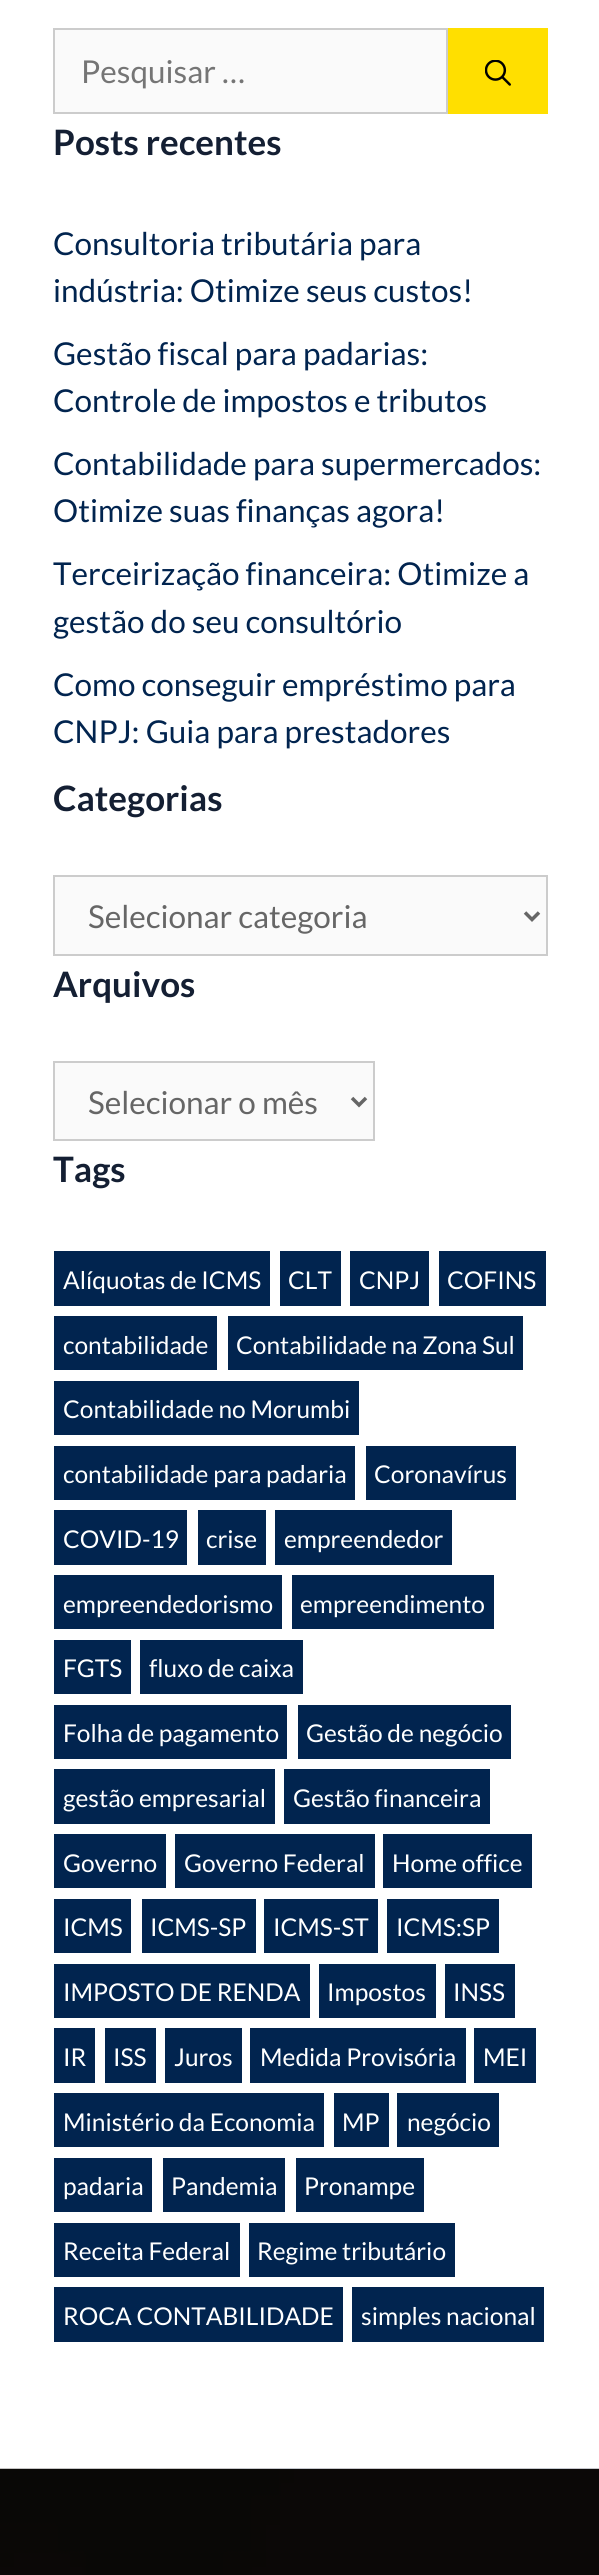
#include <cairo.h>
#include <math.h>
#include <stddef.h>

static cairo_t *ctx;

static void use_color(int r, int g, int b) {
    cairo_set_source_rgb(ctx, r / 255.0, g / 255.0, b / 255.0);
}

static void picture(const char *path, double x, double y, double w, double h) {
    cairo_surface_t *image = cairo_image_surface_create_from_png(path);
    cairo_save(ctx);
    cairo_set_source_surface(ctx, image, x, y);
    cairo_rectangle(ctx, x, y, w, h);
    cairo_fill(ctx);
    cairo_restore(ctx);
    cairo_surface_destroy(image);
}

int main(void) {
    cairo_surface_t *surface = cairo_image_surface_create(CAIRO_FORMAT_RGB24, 599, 2575);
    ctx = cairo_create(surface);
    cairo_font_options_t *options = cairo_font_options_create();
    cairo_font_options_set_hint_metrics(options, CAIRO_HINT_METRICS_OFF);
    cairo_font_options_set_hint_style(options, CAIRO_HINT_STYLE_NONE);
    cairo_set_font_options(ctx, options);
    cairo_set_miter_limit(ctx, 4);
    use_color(255, 255, 255);
    cairo_paint(ctx);
    use_color(250, 250, 250);
    cairo_rectangle(ctx, 54, 29, 393, 84);
    cairo_fill_preserve(ctx);
    use_color(204, 204, 204);
    cairo_stroke(ctx);
    cairo_select_font_face(ctx, "Lato", CAIRO_FONT_SLANT_NORMAL, CAIRO_FONT_WEIGHT_NORMAL);
    cairo_set_font_size(ctx, 31.5);
    use_color(117, 117, 117);
    cairo_move_to(ctx, 81, 83);
    cairo_show_text(ctx, "Pesquisar …");
    use_color(255, 223, 0);
    cairo_rectangle(ctx, 448, 28, 100, 86);
    cairo_fill(ctx);
    picture("img1.png", 485, 60, 26, 26);
    cairo_select_font_face(ctx, "Lato", CAIRO_FONT_SLANT_NORMAL, CAIRO_FONT_WEIGHT_BOLD);
    cairo_set_font_size(ctx, 35);
    use_color(20, 31, 51);
    cairo_move_to(ctx, 53, 155);
    cairo_show_text(ctx, "Posts recentes");
    cairo_select_font_face(ctx, "Lato", CAIRO_FONT_SLANT_NORMAL, CAIRO_FONT_WEIGHT_NORMAL);
    cairo_set_font_size(ctx, 31.5);
    use_color(1, 36, 79);
    cairo_move_to(ctx, 53, 255);
    cairo_show_text(ctx, "Consultoria tributária para");
    cairo_move_to(ctx, 53, 302);
    cairo_show_text(ctx, "indústria: Otimize seus custos!");
    cairo_move_to(ctx, 53, 365);
    cairo_show_text(ctx, "Gestão fiscal para padarias:");
    cairo_move_to(ctx, 53, 412);
    cairo_show_text(ctx, "Controle de impostos e tributos");
    cairo_move_to(ctx, 53, 475);
    cairo_show_text(ctx, "Contabilidade para supermercados:");
    cairo_move_to(ctx, 53, 522);
    cairo_show_text(ctx, "Otimize suas finanças agora!");
    cairo_move_to(ctx, 53, 585);
    cairo_show_text(ctx, "Terceirização financeira: Otimize a");
    cairo_move_to(ctx, 53, 633);
    cairo_show_text(ctx, "gestão do seu consultório");
    cairo_move_to(ctx, 53, 696);
    cairo_show_text(ctx, "Como conseguir empréstimo para");
    cairo_move_to(ctx, 53, 743);
    cairo_show_text(ctx, "CNPJ: Guia para prestadores");
    cairo_select_font_face(ctx, "Lato", CAIRO_FONT_SLANT_NORMAL, CAIRO_FONT_WEIGHT_BOLD);
    cairo_set_font_size(ctx, 35);
    use_color(20, 31, 51);
    cairo_move_to(ctx, 53, 811);
    cairo_show_text(ctx, "Categorias");
    use_color(250, 250, 250);
    cairo_rectangle(ctx, 54, 876, 493, 79);
    cairo_fill_preserve(ctx);
    use_color(204, 204, 204);
    cairo_stroke(ctx);
    cairo_new_path(ctx);
    cairo_move_to(ctx, 525, 912.5);
    cairo_line_to(ctx, 532, 919.5);
    cairo_line_to(ctx, 539, 912.5);
    use_color(102, 102, 102);
    cairo_set_line_width(ctx, 3.5);
    cairo_stroke(ctx);
    cairo_select_font_face(ctx, "Lato", CAIRO_FONT_SLANT_NORMAL, CAIRO_FONT_WEIGHT_NORMAL);
    cairo_set_font_size(ctx, 31.5);
    cairo_move_to(ctx, 88, 928);
    cairo_show_text(ctx, "Selecionar categoria");
    cairo_select_font_face(ctx, "Lato", CAIRO_FONT_SLANT_NORMAL, CAIRO_FONT_WEIGHT_BOLD);
    cairo_set_font_size(ctx, 35);
    use_color(20, 31, 51);
    cairo_move_to(ctx, 53, 997);
    cairo_show_text(ctx, "Arquivos");
    use_color(250, 250, 250);
    cairo_rectangle(ctx, 54, 1062, 320, 78);
    cairo_fill_preserve(ctx);
    use_color(204, 204, 204);
    cairo_set_line_width(ctx, 2);
    cairo_stroke(ctx);
    cairo_new_path(ctx);
    cairo_move_to(ctx, 352, 1098);
    cairo_line_to(ctx, 359, 1105);
    cairo_line_to(ctx, 366, 1098);
    use_color(102, 102, 102);
    cairo_set_line_width(ctx, 3.5);
    cairo_stroke(ctx);
    cairo_select_font_face(ctx, "Lato", CAIRO_FONT_SLANT_NORMAL, CAIRO_FONT_WEIGHT_NORMAL);
    cairo_set_font_size(ctx, 31.5);
    cairo_move_to(ctx, 88, 1114);
    cairo_show_text(ctx, "Selecionar o mês");
    cairo_select_font_face(ctx, "Lato", CAIRO_FONT_SLANT_NORMAL, CAIRO_FONT_WEIGHT_BOLD);
    cairo_set_font_size(ctx, 35);
    use_color(20, 31, 51);
    cairo_move_to(ctx, 53, 1182);
    cairo_show_text(ctx, "Tags");
    use_color(1, 36, 79);
    cairo_rectangle(ctx, 54, 1251, 216, 55);
    cairo_fill(ctx);
    cairo_select_font_face(ctx, "Lato", CAIRO_FONT_SLANT_NORMAL, CAIRO_FONT_WEIGHT_NORMAL);
    cairo_set_font_size(ctx, 24.5);
    use_color(255, 255, 255);
    cairo_move_to(ctx, 63, 1289);
    cairo_show_text(ctx, "Alíquotas de ICMS");
    use_color(1, 36, 79);
    cairo_rectangle(ctx, 280, 1251, 61, 55);
    cairo_fill(ctx);
    use_color(255, 255, 255);
    cairo_move_to(ctx, 288, 1289);
    cairo_show_text(ctx, "CLT");
    use_color(1, 36, 79);
    cairo_rectangle(ctx, 350, 1251, 79, 55);
    cairo_fill(ctx);
    use_color(255, 255, 255);
    cairo_move_to(ctx, 359, 1289);
    cairo_show_text(ctx, "CNPJ");
    use_color(1, 36, 79);
    cairo_rectangle(ctx, 439, 1251, 107, 55);
    cairo_fill(ctx);
    use_color(255, 255, 255);
    cairo_move_to(ctx, 447, 1289);
    cairo_show_text(ctx, "COFINS");
    use_color(1, 36, 79);
    cairo_rectangle(ctx, 54, 1316, 163, 54);
    cairo_fill(ctx);
    use_color(255, 255, 255);
    cairo_move_to(ctx, 63, 1354);
    cairo_show_text(ctx, "contabilidade");
    use_color(1, 36, 79);
    cairo_rectangle(ctx, 228, 1316, 295, 54);
    cairo_fill(ctx);
    use_color(255, 255, 255);
    cairo_move_to(ctx, 236, 1354);
    cairo_show_text(ctx, "Contabilidade na Zona Sul");
    use_color(1, 36, 79);
    cairo_rectangle(ctx, 54, 1381, 305, 54);
    cairo_fill(ctx);
    use_color(255, 255, 255);
    cairo_move_to(ctx, 63, 1418);
    cairo_show_text(ctx, "Contabilidade no Morumbi");
    use_color(1, 36, 79);
    cairo_rectangle(ctx, 54, 1446, 301, 54);
    cairo_fill(ctx);
    use_color(255, 255, 255);
    cairo_move_to(ctx, 63, 1483);
    cairo_show_text(ctx, "contabilidade para padaria");
    use_color(1, 36, 79);
    cairo_rectangle(ctx, 366, 1446, 150, 54);
    cairo_fill(ctx);
    use_color(255, 255, 255);
    cairo_move_to(ctx, 374, 1483);
    cairo_show_text(ctx, "Coronavírus");
    use_color(1, 36, 79);
    cairo_rectangle(ctx, 54, 1510, 133, 55);
    cairo_fill(ctx);
    use_color(255, 255, 255);
    cairo_move_to(ctx, 63, 1548);
    cairo_show_text(ctx, "COVID-19");
    use_color(1, 36, 79);
    cairo_rectangle(ctx, 198, 1510, 68, 55);
    cairo_fill(ctx);
    use_color(255, 255, 255);
    cairo_move_to(ctx, 206, 1548);
    cairo_show_text(ctx, "crise");
    use_color(1, 36, 79);
    cairo_rectangle(ctx, 275, 1510, 177, 55);
    cairo_fill(ctx);
    use_color(255, 255, 255);
    cairo_move_to(ctx, 284, 1548);
    cairo_show_text(ctx, "empreendedor");
    use_color(1, 36, 79);
    cairo_rectangle(ctx, 54, 1575, 228, 54);
    cairo_fill(ctx);
    use_color(255, 255, 255);
    cairo_move_to(ctx, 63, 1613);
    cairo_show_text(ctx, "empreendedorismo");
    use_color(1, 36, 79);
    cairo_rectangle(ctx, 292, 1575, 202, 54);
    cairo_fill(ctx);
    use_color(255, 255, 255);
    cairo_move_to(ctx, 300, 1613);
    cairo_show_text(ctx, "empreendimento");
    use_color(1, 36, 79);
    cairo_rectangle(ctx, 54, 1640, 77, 54);
    cairo_fill(ctx);
    use_color(255, 255, 255);
    cairo_move_to(ctx, 63, 1677);
    cairo_show_text(ctx, "FGTS");
    use_color(1, 36, 79);
    cairo_rectangle(ctx, 140, 1640, 163, 54);
    cairo_fill(ctx);
    use_color(255, 255, 255);
    cairo_move_to(ctx, 149, 1677);
    cairo_show_text(ctx, "fluxo de caixa");
    use_color(1, 36, 79);
    cairo_rectangle(ctx, 54, 1705, 233, 54);
    cairo_fill(ctx);
    use_color(255, 255, 255);
    cairo_move_to(ctx, 63, 1742);
    cairo_show_text(ctx, "Folha de pagamento");
    use_color(1, 36, 79);
    cairo_rectangle(ctx, 298, 1705, 213, 54);
    cairo_fill(ctx);
    use_color(255, 255, 255);
    cairo_move_to(ctx, 306, 1742);
    cairo_show_text(ctx, "Gestão de negócio");
    use_color(1, 36, 79);
    cairo_rectangle(ctx, 54, 1769, 221, 55);
    cairo_fill(ctx);
    use_color(255, 255, 255);
    cairo_move_to(ctx, 63, 1807);
    cairo_show_text(ctx, "gestão empresarial");
    use_color(1, 36, 79);
    cairo_rectangle(ctx, 284, 1769, 206, 55);
    cairo_fill(ctx);
    use_color(255, 255, 255);
    cairo_move_to(ctx, 293, 1807);
    cairo_show_text(ctx, "Gestão financeira");
    use_color(1, 36, 79);
    cairo_rectangle(ctx, 54, 1834, 112, 54);
    cairo_fill(ctx);
    use_color(255, 255, 255);
    cairo_move_to(ctx, 63, 1872);
    cairo_show_text(ctx, "Governo");
    use_color(1, 36, 79);
    cairo_rectangle(ctx, 175, 1834, 200, 54);
    cairo_fill(ctx);
    use_color(255, 255, 255);
    cairo_move_to(ctx, 184, 1872);
    cairo_show_text(ctx, "Governo Federal");
    use_color(1, 36, 79);
    cairo_rectangle(ctx, 383, 1834, 149, 54);
    cairo_fill(ctx);
    use_color(255, 255, 255);
    cairo_move_to(ctx, 392, 1872);
    cairo_show_text(ctx, "Home office");
    use_color(1, 36, 79);
    cairo_rectangle(ctx, 54, 1899, 77, 54);
    cairo_fill(ctx);
    use_color(255, 255, 255);
    cairo_move_to(ctx, 63, 1936);
    cairo_show_text(ctx, "ICMS");
    use_color(1, 36, 79);
    cairo_rectangle(ctx, 142, 1899, 114, 54);
    cairo_fill(ctx);
    use_color(255, 255, 255);
    cairo_move_to(ctx, 150, 1936);
    cairo_show_text(ctx, "ICMS-SP");
    use_color(1, 36, 79);
    cairo_rectangle(ctx, 264, 1899, 114, 54);
    cairo_fill(ctx);
    use_color(255, 255, 255);
    cairo_move_to(ctx, 273, 1936);
    cairo_show_text(ctx, "ICMS-ST");
    use_color(1, 36, 79);
    cairo_rectangle(ctx, 387, 1899, 112, 54);
    cairo_fill(ctx);
    use_color(255, 255, 255);
    cairo_move_to(ctx, 396, 1936);
    cairo_show_text(ctx, "ICMS:SP");
    use_color(1, 36, 79);
    cairo_rectangle(ctx, 54, 1964, 256, 54);
    cairo_fill(ctx);
    use_color(255, 255, 255);
    cairo_move_to(ctx, 63, 2001);
    cairo_show_text(ctx, "IMPOSTO DE RENDA");
    use_color(1, 36, 79);
    cairo_rectangle(ctx, 319, 1964, 117, 54);
    cairo_fill(ctx);
    use_color(255, 255, 255);
    cairo_move_to(ctx, 327, 2001);
    cairo_show_text(ctx, "Impostos");
    use_color(1, 36, 79);
    cairo_rectangle(ctx, 445, 1964, 70, 54);
    cairo_fill(ctx);
    use_color(255, 255, 255);
    cairo_move_to(ctx, 453, 2001);
    cairo_show_text(ctx, "INSS");
    use_color(1, 36, 79);
    cairo_rectangle(ctx, 54, 2028, 41, 55);
    cairo_fill(ctx);
    use_color(255, 255, 255);
    cairo_move_to(ctx, 63, 2066);
    cairo_show_text(ctx, "IR");
    use_color(1, 36, 79);
    cairo_rectangle(ctx, 105, 2028, 51, 55);
    cairo_fill(ctx);
    use_color(255, 255, 255);
    cairo_move_to(ctx, 113, 2066);
    cairo_show_text(ctx, "ISS");
    use_color(1, 36, 79);
    cairo_rectangle(ctx, 165, 2028, 77, 55);
    cairo_fill(ctx);
    use_color(255, 255, 255);
    cairo_move_to(ctx, 174, 2066);
    cairo_show_text(ctx, "Juros");
    use_color(1, 36, 79);
    cairo_rectangle(ctx, 250, 2028, 216, 55);
    cairo_fill(ctx);
    use_color(255, 255, 255);
    cairo_move_to(ctx, 260, 2066);
    cairo_show_text(ctx, "Medida Provisória");
    use_color(1, 36, 79);
    cairo_rectangle(ctx, 474, 2028, 62, 55);
    cairo_fill(ctx);
    use_color(255, 255, 255);
    cairo_move_to(ctx, 483, 2066);
    cairo_show_text(ctx, "MEI");
    use_color(1, 36, 79);
    cairo_rectangle(ctx, 54, 2093, 270, 54);
    cairo_fill(ctx);
    use_color(255, 255, 255);
    cairo_move_to(ctx, 63, 2131);
    cairo_show_text(ctx, "Ministério da Economia");
    use_color(1, 36, 79);
    cairo_rectangle(ctx, 334, 2093, 55, 54);
    cairo_fill(ctx);
    use_color(255, 255, 255);
    cairo_move_to(ctx, 342, 2131);
    cairo_show_text(ctx, "MP");
    use_color(1, 36, 79);
    cairo_rectangle(ctx, 397, 2093, 102, 54);
    cairo_fill(ctx);
    use_color(255, 255, 255);
    cairo_move_to(ctx, 407, 2131);
    cairo_show_text(ctx, "negócio");
    use_color(1, 36, 79);
    cairo_rectangle(ctx, 54, 2158, 98, 54);
    cairo_fill(ctx);
    use_color(255, 255, 255);
    cairo_move_to(ctx, 63, 2195);
    cairo_show_text(ctx, "padaria");
    use_color(1, 36, 79);
    cairo_rectangle(ctx, 163, 2158, 122, 54);
    cairo_fill(ctx);
    use_color(255, 255, 255);
    cairo_move_to(ctx, 171, 2195);
    cairo_show_text(ctx, "Pandemia");
    use_color(1, 36, 79);
    cairo_rectangle(ctx, 296, 2158, 128, 54);
    cairo_fill(ctx);
    use_color(255, 255, 255);
    cairo_move_to(ctx, 304, 2195);
    cairo_show_text(ctx, "Pronampe");
    use_color(1, 36, 79);
    cairo_rectangle(ctx, 54, 2223, 186, 54);
    cairo_fill(ctx);
    use_color(255, 255, 255);
    cairo_move_to(ctx, 63, 2260);
    cairo_show_text(ctx, "Receita Federal");
    use_color(1, 36, 79);
    cairo_rectangle(ctx, 249, 2223, 206, 54);
    cairo_fill(ctx);
    use_color(255, 255, 255);
    cairo_move_to(ctx, 257, 2260);
    cairo_show_text(ctx, "Regime tributário");
    use_color(1, 36, 79);
    cairo_rectangle(ctx, 54, 2287, 289, 55);
    cairo_fill(ctx);
    use_color(255, 255, 255);
    cairo_move_to(ctx, 63, 2325);
    cairo_show_text(ctx, "ROCA CONTABILIDADE");
    use_color(1, 36, 79);
    cairo_rectangle(ctx, 352, 2287, 192, 55);
    cairo_fill(ctx);
    use_color(255, 255, 255);
    cairo_move_to(ctx, 361, 2325);
    cairo_show_text(ctx, "simples nacional");
    picture("img2.png", 0, 2468, 599, 107);
    cairo_surface_write_to_png(surface, "result.png");
    cairo_font_options_destroy(options);
    cairo_destroy(ctx);
    cairo_surface_destroy(surface);
    return 0;
}
